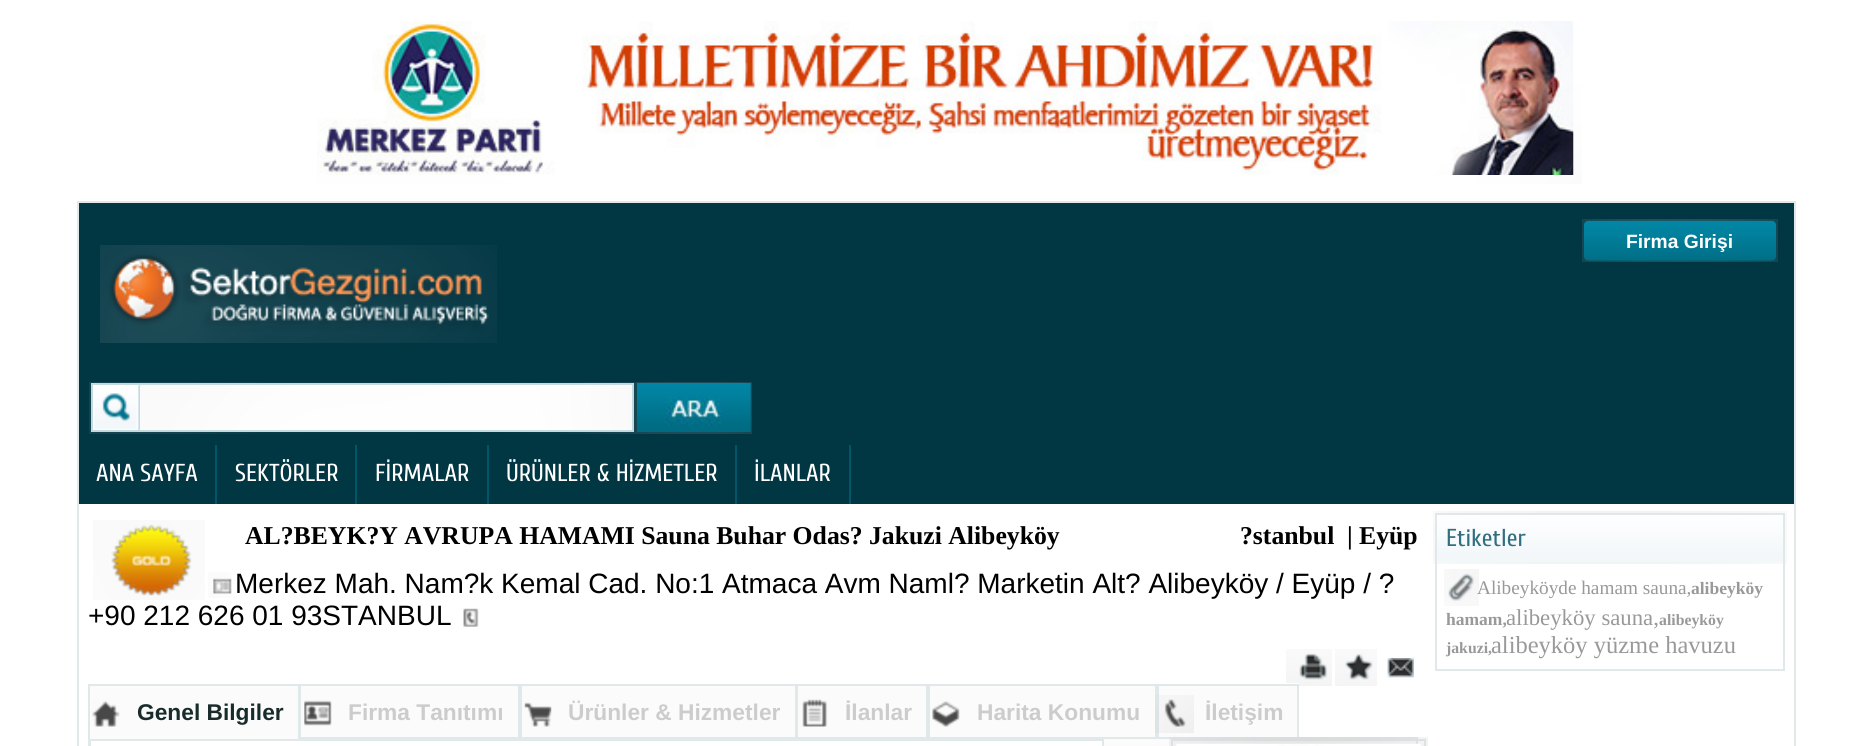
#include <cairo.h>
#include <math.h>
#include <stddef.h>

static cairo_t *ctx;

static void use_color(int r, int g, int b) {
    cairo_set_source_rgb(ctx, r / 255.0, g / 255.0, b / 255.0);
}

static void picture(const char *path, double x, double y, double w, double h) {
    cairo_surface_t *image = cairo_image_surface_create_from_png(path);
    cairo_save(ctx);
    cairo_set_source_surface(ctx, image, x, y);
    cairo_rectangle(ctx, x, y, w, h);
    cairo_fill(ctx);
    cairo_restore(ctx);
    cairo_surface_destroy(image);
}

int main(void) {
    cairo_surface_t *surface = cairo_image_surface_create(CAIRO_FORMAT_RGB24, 1871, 746);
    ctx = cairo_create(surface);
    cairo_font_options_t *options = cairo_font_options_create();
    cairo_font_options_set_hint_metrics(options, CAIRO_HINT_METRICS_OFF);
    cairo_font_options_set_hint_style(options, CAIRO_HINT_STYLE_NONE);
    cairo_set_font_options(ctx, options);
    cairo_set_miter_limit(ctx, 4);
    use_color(255, 255, 255);
    cairo_paint(ctx);
    picture("img1.png", 317, 21, 1265, 163);
    cairo_rectangle(ctx, 78, 202, 1717, 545);
    use_color(225, 232, 234);
    cairo_stroke(ctx);
    use_color(1, 54, 67);
    cairo_rectangle(ctx, 79, 203, 1715, 301);
    cairo_fill(ctx);
    picture("img2.png", 1582, 219, 196, 43);
    cairo_select_font_face(ctx, "Liberation Sans", CAIRO_FONT_SLANT_NORMAL, CAIRO_FONT_WEIGHT_BOLD);
    cairo_set_font_size(ctx, 19.25);
    use_color(255, 255, 255);
    cairo_move_to(ctx, 1626, 248);
    cairo_show_text(ctx, "Firma Girişi");
    picture("img3.png", 100, 245, 397, 98);
    cairo_rectangle(ctx, 93, 385, 539, 45);
    cairo_fill(ctx);
    picture("img4.png", 89, 382, 546, 52);
    cairo_rectangle(ctx, 92, 384, 541, 47);
    use_color(194, 218, 224);
    cairo_stroke(ctx);
    picture("img5.png", 635, 382, 117, 52);
    use_color(1, 87, 105);
    cairo_rectangle(ctx, 215, 445, 2, 59);
    cairo_fill(ctx);
    cairo_select_font_face(ctx, "Cuprum", CAIRO_FONT_SLANT_NORMAL, CAIRO_FONT_WEIGHT_NORMAL);
    cairo_set_font_size(ctx, 24.5);
    use_color(255, 255, 255);
    cairo_move_to(ctx, 96, 481);
    cairo_show_text(ctx, "ANA SAYFA");
    use_color(1, 87, 105);
    cairo_rectangle(ctx, 355, 445, 2, 59);
    cairo_fill(ctx);
    use_color(255, 255, 255);
    cairo_move_to(ctx, 235, 481);
    cairo_show_text(ctx, "SEKTÖRLER");
    use_color(1, 87, 105);
    cairo_rectangle(ctx, 487, 445, 2, 59);
    cairo_fill(ctx);
    use_color(255, 255, 255);
    cairo_move_to(ctx, 375, 481);
    cairo_show_text(ctx, "FİRMALAR");
    use_color(1, 87, 105);
    cairo_rectangle(ctx, 735, 445, 2, 59);
    cairo_fill(ctx);
    use_color(255, 255, 255);
    cairo_move_to(ctx, 506, 481);
    cairo_show_text(ctx, "ÜRÜNLER & HİZMETLER");
    use_color(1, 87, 105);
    cairo_rectangle(ctx, 849, 445, 2, 59);
    cairo_fill(ctx);
    use_color(255, 255, 255);
    cairo_move_to(ctx, 754, 481);
    cairo_show_text(ctx, "İLANLAR");
    picture("img6.png", 93, 520, 112, 80);
    cairo_select_font_face(ctx, "Liberation Serif", CAIRO_FONT_SLANT_NORMAL, CAIRO_FONT_WEIGHT_BOLD);
    cairo_set_font_size(ctx, 25.7);
    use_color(0, 0, 0);
    cairo_move_to(ctx, 245, 544);
    cairo_show_text(ctx, "AL?BEYK?Y AVRUPA HAMAMI Sauna Buhar Odas? Jakuzi Alibeyköy");
    cairo_move_to(ctx, 1240, 544);
    cairo_show_text(ctx, "?stanbul");
    cairo_move_to(ctx, 1347, 544);
    cairo_show_text(ctx, "| Eyüp");
    picture("img7.png", 208, 572, 24, 26);
    cairo_select_font_face(ctx, "Liberation Sans", CAIRO_FONT_SLANT_NORMAL, CAIRO_FONT_WEIGHT_NORMAL);
    cairo_set_font_size(ctx, 28);
    cairo_move_to(ctx, 235, 593);
    cairo_show_text(ctx, "Merkez Mah. Nam?k Kemal Cad. No:1 Atmaca Avm Naml? Marketin Alt? Alibeyköy / Eyüp / ?");
    cairo_move_to(ctx, 88, 625);
    cairo_show_text(ctx, "+90 212 626 01 93STANBUL");
    picture("img8.png", 463, 608, 16, 19);
    picture("img9.png", 1286, 649, 46, 37);
    picture("img10.png", 1335, 649, 42, 37);
    picture("img11.png", 1387, 658, 27, 20);
    use_color(255, 255, 255);
    cairo_rectangle(ctx, 1286, 683, 13, 1);
    cairo_fill(ctx);
    use_color(251, 251, 251);
    cairo_rectangle(ctx, 1104, 739, 312, 7);
    cairo_fill(ctx);
    cairo_rectangle(ctx, 89, 738, 1328, 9);
    use_color(225, 232, 234);
    cairo_stroke(ctx);
    use_color(251, 251, 251);
    cairo_rectangle(ctx, 90, 686, 208, 53);
    cairo_fill(ctx);
    use_color(225, 232, 234);
    cairo_rectangle(ctx, 88, 684, 211, 2);
    cairo_fill(ctx);
    cairo_rectangle(ctx, 298, 684, 2, 55);
    cairo_fill(ctx);
    cairo_rectangle(ctx, 88, 684, 2, 55);
    cairo_fill(ctx);
    picture("img12.png", 92, 701, 28, 26);
    cairo_select_font_face(ctx, "Liberation Sans", CAIRO_FONT_SLANT_NORMAL, CAIRO_FONT_WEIGHT_BOLD);
    cairo_set_font_size(ctx, 22.75);
    use_color(24, 44, 43);
    cairo_move_to(ctx, 137, 720);
    cairo_show_text(ctx, "Genel Bilgiler");
    use_color(251, 251, 251);
    cairo_rectangle(ctx, 301, 686, 217, 51);
    cairo_fill(ctx);
    use_color(225, 232, 234);
    cairo_rectangle(ctx, 299, 684, 1000, 2);
    cairo_fill(ctx);
    cairo_rectangle(ctx, 518, 684, 4, 53);
    cairo_fill(ctx);
    cairo_rectangle(ctx, 300, 684, 1, 53);
    cairo_fill(ctx);
    picture("img13.png", 304, 700, 28, 26);
    use_color(204, 204, 204);
    cairo_move_to(ctx, 348, 720);
    cairo_show_text(ctx, "Firma Tanıtımı");
    use_color(251, 251, 251);
    cairo_rectangle(ctx, 522, 686, 273, 51);
    cairo_fill(ctx);
    use_color(225, 232, 234);
    cairo_rectangle(ctx, 795, 684, 3, 53);
    cairo_fill(ctx);
    picture("img14.png", 524, 702, 28, 25);
    use_color(204, 204, 204);
    cairo_move_to(ctx, 568, 720);
    cairo_show_text(ctx, "Ürünler & Hizmetler");
    use_color(251, 251, 251);
    cairo_rectangle(ctx, 798, 686, 128, 51);
    cairo_fill(ctx);
    use_color(225, 232, 234);
    cairo_rectangle(ctx, 926, 684, 4, 53);
    cairo_fill(ctx);
    picture("img15.png", 802, 699, 26, 28);
    use_color(204, 204, 204);
    cairo_move_to(ctx, 845, 720);
    cairo_show_text(ctx, "İlanlar");
    use_color(251, 251, 251);
    cairo_rectangle(ctx, 930, 686, 225, 51);
    cairo_fill(ctx);
    use_color(225, 232, 234);
    cairo_rectangle(ctx, 1155, 684, 4, 53);
    cairo_fill(ctx);
    picture("img16.png", 932, 701, 28, 26);
    use_color(204, 204, 204);
    cairo_move_to(ctx, 977, 720);
    cairo_show_text(ctx, "Harita Konumu");
    use_color(251, 251, 251);
    cairo_rectangle(ctx, 1159, 686, 138, 51);
    cairo_fill(ctx);
    use_color(225, 232, 234);
    cairo_rectangle(ctx, 1297, 684, 2, 53);
    cairo_fill(ctx);
    picture("img17.png", 1155, 695, 39, 38);
    use_color(204, 204, 204);
    cairo_move_to(ctx, 1205, 720);
    cairo_show_text(ctx, "İletişim");
    use_color(255, 255, 255);
    cairo_rectangle(ctx, 89, 741, 1, 5);
    cairo_fill(ctx);
    cairo_rectangle(ctx, 90, 740, 1013, 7);
    use_color(225, 232, 234);
    cairo_stroke(ctx);
    cairo_rectangle(ctx, 1172, 740, 253, 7);
    cairo_stroke(ctx);
    picture("img18.png", 1169, 737, 259, 9);
    picture("img19.png", 1433, 511, 354, 53);
    cairo_rectangle(ctx, 1435, 513, 350, 2);
    cairo_fill(ctx);
    cairo_rectangle(ctx, 1783, 513, 2, 157);
    cairo_fill(ctx);
    cairo_rectangle(ctx, 1435, 513, 2, 49);
    cairo_fill(ctx);
    cairo_select_font_face(ctx, "Cuprum", CAIRO_FONT_SLANT_NORMAL, CAIRO_FONT_WEIGHT_NORMAL);
    cairo_set_font_size(ctx, 24.5);
    use_color(49, 110, 128);
    cairo_move_to(ctx, 1446, 546);
    cairo_show_text(ctx, "Etiketler");
    use_color(225, 232, 234);
    cairo_rectangle(ctx, 1435, 669, 350, 2);
    cairo_fill(ctx);
    cairo_rectangle(ctx, 1435, 562, 2, 108);
    cairo_fill(ctx);
    picture("img20.png", 1444, 569, 35, 37);
    cairo_select_font_face(ctx, "Liberation Serif", CAIRO_FONT_SLANT_NORMAL, CAIRO_FONT_WEIGHT_NORMAL);
    cairo_set_font_size(ctx, 19.25);
    use_color(153, 153, 153);
    cairo_move_to(ctx, 1477, 594);
    cairo_show_text(ctx, "Alibeyköyde hamam sauna,");
    cairo_select_font_face(ctx, "Liberation Serif", CAIRO_FONT_SLANT_NORMAL, CAIRO_FONT_WEIGHT_BOLD);
    cairo_set_font_size(ctx, 17.5);
    cairo_move_to(ctx, 1691, 594);
    cairo_show_text(ctx, "alibeyköy");
    cairo_move_to(ctx, 1446, 625);
    cairo_show_text(ctx, "hamam,");
    cairo_select_font_face(ctx, "Liberation Serif", CAIRO_FONT_SLANT_NORMAL, CAIRO_FONT_WEIGHT_NORMAL);
    cairo_set_font_size(ctx, 22.75);
    cairo_move_to(ctx, 1506, 625);
    cairo_show_text(ctx, "alibeyköy sauna,");
    cairo_select_font_face(ctx, "Liberation Serif", CAIRO_FONT_SLANT_NORMAL, CAIRO_FONT_WEIGHT_BOLD);
    cairo_set_font_size(ctx, 15.75);
    cairo_move_to(ctx, 1659, 625);
    cairo_show_text(ctx, "alibeyköy");
    cairo_move_to(ctx, 1446, 653);
    cairo_show_text(ctx, "jakuzi,");
    cairo_select_font_face(ctx, "Liberation Serif", CAIRO_FONT_SLANT_NORMAL, CAIRO_FONT_WEIGHT_NORMAL);
    cairo_set_font_size(ctx, 24.5);
    cairo_move_to(ctx, 1491, 653);
    cairo_show_text(ctx, "alibeyköy yüzme havuzu");
    cairo_surface_write_to_png(surface, "result.png");
    cairo_font_options_destroy(options);
    cairo_destroy(ctx);
    cairo_surface_destroy(surface);
    return 0;
}
